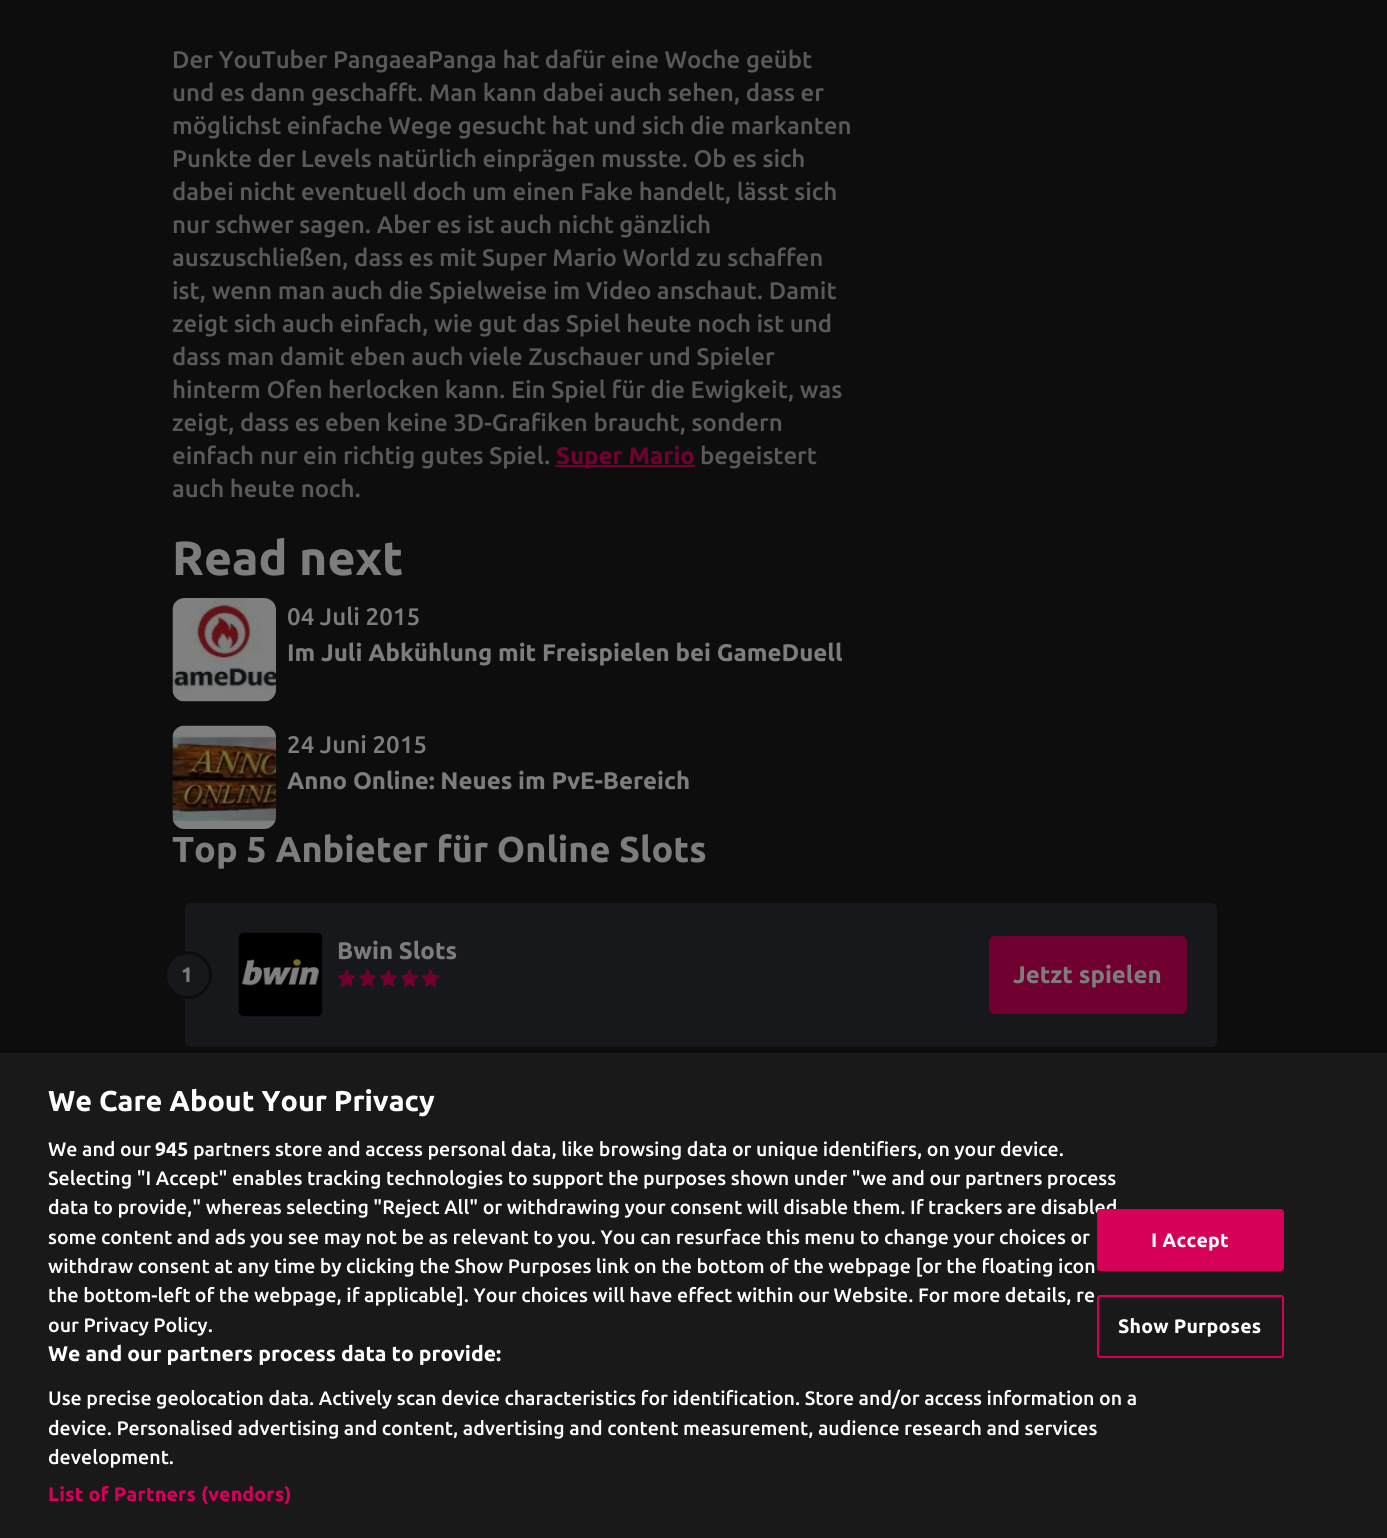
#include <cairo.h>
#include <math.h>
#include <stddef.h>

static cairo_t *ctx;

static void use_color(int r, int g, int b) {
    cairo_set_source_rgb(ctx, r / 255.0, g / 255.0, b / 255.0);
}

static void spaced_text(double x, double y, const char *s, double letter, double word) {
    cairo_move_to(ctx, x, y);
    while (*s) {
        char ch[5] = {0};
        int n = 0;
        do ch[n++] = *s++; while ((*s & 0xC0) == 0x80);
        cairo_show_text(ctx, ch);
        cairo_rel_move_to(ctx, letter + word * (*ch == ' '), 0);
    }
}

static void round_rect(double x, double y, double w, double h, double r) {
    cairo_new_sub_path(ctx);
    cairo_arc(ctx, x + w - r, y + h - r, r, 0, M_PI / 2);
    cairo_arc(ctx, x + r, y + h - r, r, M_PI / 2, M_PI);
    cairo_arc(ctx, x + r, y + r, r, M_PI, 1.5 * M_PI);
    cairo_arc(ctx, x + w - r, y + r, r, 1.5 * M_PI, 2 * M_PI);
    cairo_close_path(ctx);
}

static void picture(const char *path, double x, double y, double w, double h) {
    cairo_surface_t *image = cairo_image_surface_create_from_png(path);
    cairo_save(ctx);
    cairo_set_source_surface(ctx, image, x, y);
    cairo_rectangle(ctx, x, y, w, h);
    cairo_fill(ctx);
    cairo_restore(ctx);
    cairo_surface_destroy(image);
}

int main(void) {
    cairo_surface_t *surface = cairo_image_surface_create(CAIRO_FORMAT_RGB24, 1387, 1538);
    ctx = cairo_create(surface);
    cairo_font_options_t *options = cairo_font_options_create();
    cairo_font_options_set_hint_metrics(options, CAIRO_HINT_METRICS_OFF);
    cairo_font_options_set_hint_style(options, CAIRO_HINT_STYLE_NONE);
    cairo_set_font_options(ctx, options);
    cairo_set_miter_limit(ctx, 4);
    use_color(13, 13, 13);
    cairo_paint(ctx);
    cairo_select_font_face(ctx, "Ubuntu Medium", CAIRO_FONT_SLANT_NORMAL, CAIRO_FONT_WEIGHT_NORMAL);
    cairo_set_font_size(ctx, 24);
    use_color(89, 89, 89);
    cairo_move_to(ctx, 172, 68);
    cairo_show_text(ctx, "Der YouTuber PangaeaPanga hat dafür eine Woche geübt");
    cairo_move_to(ctx, 172, 101);
    cairo_show_text(ctx, "und es dann geschafft. Man kann dabei auch sehen, dass er");
    cairo_move_to(ctx, 172, 134);
    cairo_show_text(ctx, "möglichst einfache Wege gesucht hat und sich die markanten");
    cairo_move_to(ctx, 172, 167);
    cairo_show_text(ctx, "Punkte der Levels natürlich einprägen musste. Ob es sich");
    cairo_move_to(ctx, 172, 200);
    cairo_show_text(ctx, "dabei nicht eventuell doch um einen Fake handelt, lässt sich");
    cairo_move_to(ctx, 172, 233);
    cairo_show_text(ctx, "nur schwer sagen. Aber es ist auch nicht gänzlich");
    cairo_move_to(ctx, 172, 266);
    cairo_show_text(ctx, "auszuschließen, dass es mit Super Mario World zu schaffen");
    cairo_move_to(ctx, 172, 299);
    cairo_show_text(ctx, "ist, wenn man auch die Spielweise im Video anschaut. Damit");
    cairo_move_to(ctx, 172, 332);
    cairo_show_text(ctx, "zeigt sich auch einfach, wie gut das Spiel heute noch ist und");
    cairo_move_to(ctx, 172, 365);
    cairo_show_text(ctx, "dass man damit eben auch viele Zuschauer und Spieler");
    cairo_move_to(ctx, 172, 398);
    cairo_show_text(ctx, "hinterm Ofen herlocken kann. Ein Spiel für die Ewigkeit, was");
    cairo_move_to(ctx, 172, 431);
    cairo_show_text(ctx, "zeigt, dass es eben keine 3D-Grafiken braucht, sondern");
    cairo_move_to(ctx, 172, 464);
    cairo_show_text(ctx, "einfach nur ein richtig gutes Spiel.");
    use_color(112, 0, 48);
    cairo_rectangle(ctx, 555, 465, 140, 2);
    cairo_fill(ctx);
    cairo_select_font_face(ctx, "Ubuntu", CAIRO_FONT_SLANT_NORMAL, CAIRO_FONT_WEIGHT_BOLD);
    cairo_move_to(ctx, 556, 464);
    cairo_show_text(ctx, "Super Mario");
    cairo_select_font_face(ctx, "Ubuntu Medium", CAIRO_FONT_SLANT_NORMAL, CAIRO_FONT_WEIGHT_NORMAL);
    use_color(89, 89, 89);
    cairo_move_to(ctx, 700, 464);
    cairo_show_text(ctx, "begeistert");
    cairo_move_to(ctx, 172, 497);
    cairo_show_text(ctx, "auch heute noch.");
    cairo_select_font_face(ctx, "Ubuntu", CAIRO_FONT_SLANT_NORMAL, CAIRO_FONT_WEIGHT_BOLD);
    cairo_set_font_size(ctx, 48);
    use_color(125, 125, 125);
    cairo_move_to(ctx, 172, 575);
    cairo_show_text(ctx, "Read next");
    picture("img1.png", 172, 598, 104, 104);
    cairo_select_font_face(ctx, "Ubuntu Medium", CAIRO_FONT_SLANT_NORMAL, CAIRO_FONT_WEIGHT_NORMAL);
    cairo_set_font_size(ctx, 24);
    cairo_move_to(ctx, 287, 625);
    cairo_show_text(ctx, "04 Juli 2015");
    cairo_select_font_face(ctx, "Ubuntu", CAIRO_FONT_SLANT_NORMAL, CAIRO_FONT_WEIGHT_BOLD);
    cairo_move_to(ctx, 287, 661);
    cairo_show_text(ctx, "Im Juli Abkühlung mit Freispielen bei GameDuell");
    picture("img2.png", 172, 725, 104, 104);
    cairo_select_font_face(ctx, "Ubuntu Medium", CAIRO_FONT_SLANT_NORMAL, CAIRO_FONT_WEIGHT_NORMAL);
    cairo_move_to(ctx, 287, 753);
    cairo_show_text(ctx, "24 Juni 2015");
    cairo_select_font_face(ctx, "Ubuntu", CAIRO_FONT_SLANT_NORMAL, CAIRO_FONT_WEIGHT_BOLD);
    cairo_move_to(ctx, 287, 789);
    cairo_show_text(ctx, "Anno Online: Neues im PvE-Bereich");
    cairo_set_font_size(ctx, 36);
    cairo_move_to(ctx, 172, 862);
    cairo_show_text(ctx, "Top 5 Anbieter für Online Slots");
    use_color(23, 24, 27);
    round_rect(185, 903, 1032, 144, 6);
    cairo_fill(ctx);
    cairo_set_font_size(ctx, 24);
    use_color(125, 125, 125);
    cairo_move_to(ctx, 337, 959);
    cairo_show_text(ctx, "Bwin Slots");
    picture("img3.png", 338, 969, 18, 18);
    picture("img3.png", 359, 969, 18, 18);
    picture("img3.png", 380, 969, 18, 18);
    picture("img3.png", 401, 969, 18, 18);
    picture("img3.png", 422, 969, 18, 18);
    use_color(23, 24, 27);
    cairo_arc(ctx, 188, 975, 22.5, 0, 2 * M_PI);
    cairo_fill_preserve(ctx);
    use_color(13, 13, 13);
    cairo_set_line_width(ctx, 3);
    cairo_stroke(ctx);
    cairo_set_font_size(ctx, 21);
    use_color(125, 125, 125);
    cairo_move_to(ctx, 181, 982);
    cairo_show_text(ctx, "1");
    picture("img4.png", 238, 932, 85, 85);
    use_color(112, 0, 48);
    round_rect(989, 936, 198, 78, 6);
    cairo_fill(ctx);
    cairo_set_font_size(ctx, 24);
    use_color(125, 125, 125);
    cairo_move_to(ctx, 1013, 983);
    cairo_show_text(ctx, "Jetzt spielen");
    use_color(25, 25, 25);
    cairo_rectangle(ctx, 0, 1053, 1387, 485);
    cairo_fill(ctx);
    cairo_set_font_size(ctx, 28.75);
    use_color(255, 255, 255);
    cairo_move_to(ctx, 48, 1111);
    cairo_show_text(ctx, "We Care About Your Privacy");
    cairo_select_font_face(ctx, "Ubuntu Medium", CAIRO_FONT_SLANT_NORMAL, CAIRO_FONT_WEIGHT_NORMAL);
    cairo_set_font_size(ctx, 19.5);
    cairo_move_to(ctx, 48, 1156);
    cairo_show_text(ctx, "We and our");
    cairo_select_font_face(ctx, "Ubuntu", CAIRO_FONT_SLANT_NORMAL, CAIRO_FONT_WEIGHT_BOLD);
    cairo_move_to(ctx, 155, 1156);
    cairo_show_text(ctx, "945");
    cairo_select_font_face(ctx, "Ubuntu Medium", CAIRO_FONT_SLANT_NORMAL, CAIRO_FONT_WEIGHT_NORMAL);
    cairo_move_to(ctx, 193, 1156);
    cairo_show_text(ctx, "partners store and access personal data, like browsing data or unique identifiers, on your device.");
    cairo_move_to(ctx, 48, 1185);
    cairo_show_text(ctx, "Selecting \"I Accept\" enables tracking technologies to support the purposes shown under \"we and our partners process");
    cairo_move_to(ctx, 48, 1214);
    cairo_show_text(ctx, "data to provide,\" whereas selecting \"Reject All\" or withdrawing your consent will disable them. If trackers are disabled");
    cairo_move_to(ctx, 48, 1244);
    cairo_show_text(ctx, "some content and ads you see may not be as relevant to you. You can resurface this menu to change your choices or");
    cairo_move_to(ctx, 48, 1273);
    cairo_show_text(ctx, "withdraw consent at any time by clicking the Show Purposes link on the bottom of the webpage [or the floating icon");
    cairo_move_to(ctx, 48, 1302);
    cairo_show_text(ctx, "the bottom-left of the webpage, if applicable]. Your choices will have effect within our Website. For more details, re");
    cairo_move_to(ctx, 48, 1332);
    cairo_show_text(ctx, "our Privacy Policy.");
    cairo_select_font_face(ctx, "Ubuntu", CAIRO_FONT_SLANT_NORMAL, CAIRO_FONT_WEIGHT_BOLD);
    cairo_set_font_size(ctx, 21.1);
    cairo_move_to(ctx, 48, 1361);
    cairo_show_text(ctx, "We and our partners process data to provide:");
    cairo_select_font_face(ctx, "Ubuntu Medium", CAIRO_FONT_SLANT_NORMAL, CAIRO_FONT_WEIGHT_NORMAL);
    cairo_set_font_size(ctx, 19.5);
    cairo_move_to(ctx, 48, 1405);
    cairo_show_text(ctx, "Use precise geolocation data. Actively scan device characteristics for identification. Store and/or access information on a");
    cairo_move_to(ctx, 48, 1435);
    cairo_show_text(ctx, "device. Personalised advertising and content, advertising and content measurement, audience research and services");
    cairo_move_to(ctx, 48, 1464);
    cairo_show_text(ctx, "development.");
    cairo_select_font_face(ctx, "Ubuntu", CAIRO_FONT_SLANT_NORMAL, CAIRO_FONT_WEIGHT_BOLD);
    use_color(214, 0, 89);
    spaced_text(48, 1501, "List of Partners (vendors)", 0.2, 0);
    round_rect(1098, 1210, 185, 60, 2);
    cairo_fill_preserve(ctx);
    cairo_set_line_width(ctx, 2);
    cairo_stroke(ctx);
    use_color(255, 255, 255);
    spaced_text(1151, 1247, "I Accept", 0.2, 0);
    round_rect(1098, 1296, 185, 61, 2);
    use_color(214, 0, 89);
    cairo_stroke(ctx);
    use_color(255, 255, 255);
    spaced_text(1118, 1333, "Show Purposes", 0.2, 0);
    cairo_surface_write_to_png(surface, "result.png");
    cairo_font_options_destroy(options);
    cairo_destroy(ctx);
    cairo_surface_destroy(surface);
    return 0;
}
